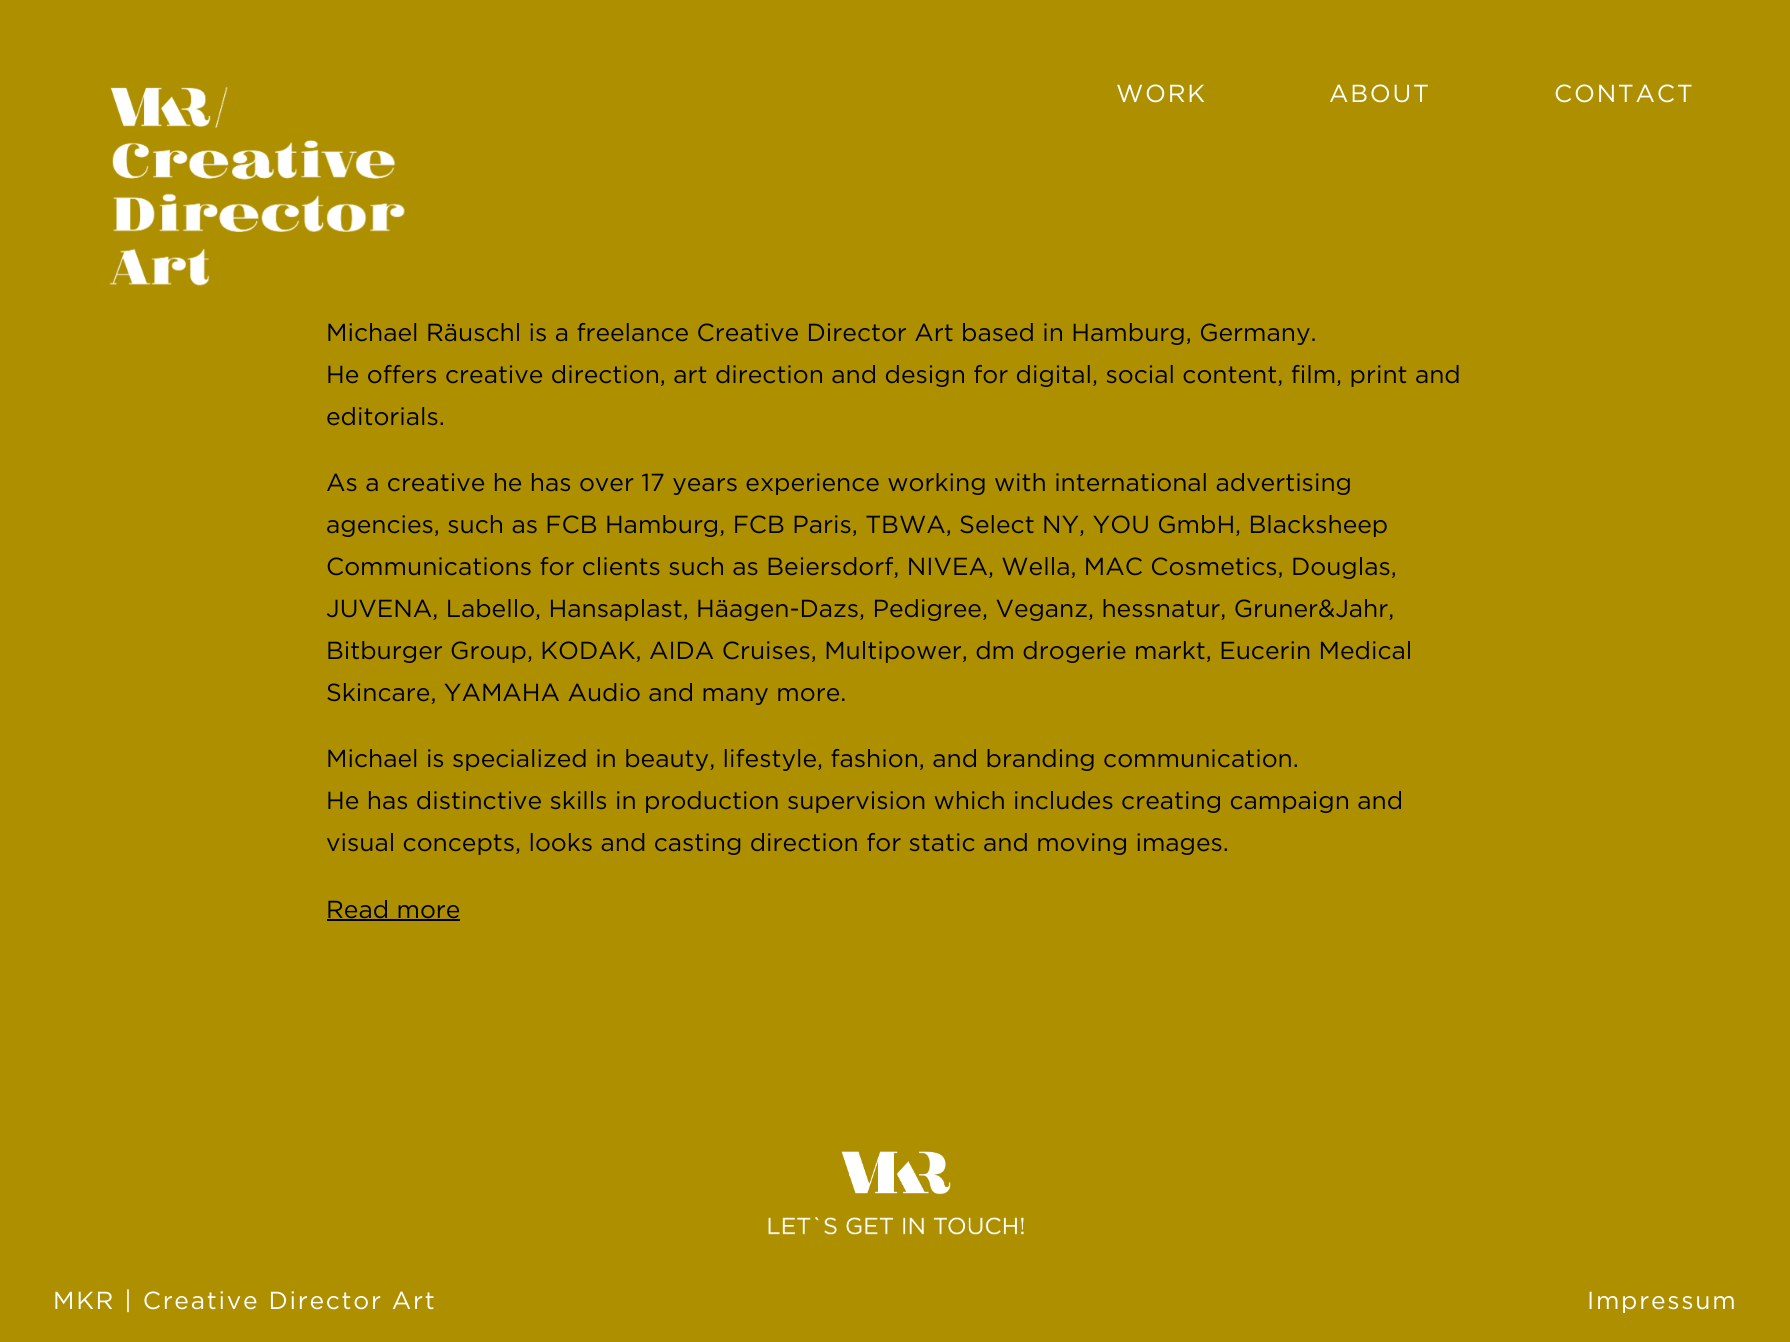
#include <cairo.h>
#include <math.h>
#include <stddef.h>

static cairo_t *ctx;

static void use_color(int r, int g, int b) {
    cairo_set_source_rgb(ctx, r / 255.0, g / 255.0, b / 255.0);
}

static void spaced_text(double x, double y, const char *s, double letter, double word) {
    cairo_move_to(ctx, x, y);
    while (*s) {
        char ch[5] = {0};
        int n = 0;
        do ch[n++] = *s++; while ((*s & 0xC0) == 0x80);
        cairo_show_text(ctx, ch);
        cairo_rel_move_to(ctx, letter + word * (*ch == ' '), 0);
    }
}

static void picture(const char *path, double x, double y, double w, double h) {
    cairo_surface_t *image = cairo_image_surface_create_from_png(path);
    cairo_save(ctx);
    cairo_set_source_surface(ctx, image, x, y);
    cairo_rectangle(ctx, x, y, w, h);
    cairo_fill(ctx);
    cairo_restore(ctx);
    cairo_surface_destroy(image);
}

int main(void) {
    cairo_surface_t *surface = cairo_image_surface_create(CAIRO_FORMAT_RGB24, 1790, 1342);
    ctx = cairo_create(surface);
    cairo_font_options_t *options = cairo_font_options_create();
    cairo_font_options_set_hint_metrics(options, CAIRO_HINT_METRICS_OFF);
    cairo_font_options_set_hint_style(options, CAIRO_HINT_STYLE_NONE);
    cairo_set_font_options(ctx, options);
    cairo_set_miter_limit(ctx, 4);
    use_color(173, 143, 0);
    cairo_paint(ctx);
    picture("img1.png", 109, 87, 296, 199);
    cairo_select_font_face(ctx, "Gotham", CAIRO_FONT_SLANT_NORMAL, CAIRO_FONT_WEIGHT_NORMAL);
    cairo_set_font_size(ctx, 24.65);
    use_color(255, 255, 255);
    spaced_text(1116, 102, "WORK", 1.75, 0);
    spaced_text(1329, 102, "ABOUT", 1.75, 0);
    spaced_text(1554, 102, "CONTACT", 1.75, 0);
    use_color(0, 0, 0);
    cairo_move_to(ctx, 326, 341);
    cairo_show_text(ctx, "Michael Räuschl is a freelance Creative Director Art based in Hamburg, Germany.");
    cairo_move_to(ctx, 326, 383);
    cairo_show_text(ctx, "He offers creative direction, art direction and design for digital, social content, film, print and");
    cairo_move_to(ctx, 326, 425);
    cairo_show_text(ctx, "editorials.");
    cairo_move_to(ctx, 326, 491);
    cairo_show_text(ctx, "As a creative he has over 17 years experience working with international advertising");
    cairo_move_to(ctx, 326, 533);
    cairo_show_text(ctx, "agencies, such as FCB Hamburg, FCB Paris, TBWA, Select NY, YOU GmbH, Blacksheep");
    cairo_move_to(ctx, 326, 575);
    cairo_show_text(ctx, "Communications for clients such as Beiersdorf, NIVEA, Wella, MAC Cosmetics, Douglas,");
    cairo_move_to(ctx, 326, 617);
    cairo_show_text(ctx, "JUVENA, Labello, Hansaplast, Häagen-Dazs, Pedigree, Veganz, hessnatur, Gruner&Jahr,");
    cairo_move_to(ctx, 326, 659);
    cairo_show_text(ctx, "Bitburger Group, KODAK, AIDA Cruises, Multipower, dm drogerie markt, Eucerin Medical");
    cairo_move_to(ctx, 326, 701);
    cairo_show_text(ctx, "Skincare, YAMAHA Audio and many more.");
    cairo_move_to(ctx, 326, 767);
    cairo_show_text(ctx, "Michael is specialized in beauty, lifestyle, fashion, and branding communication.");
    cairo_move_to(ctx, 326, 809);
    cairo_show_text(ctx, "He has distinctive skills in production supervision which includes creating campaign and");
    cairo_move_to(ctx, 326, 851);
    cairo_show_text(ctx, "visual concepts, looks and casting direction for static and moving images.");
    cairo_move_to(ctx, 326, 918);
    cairo_show_text(ctx, "Read more");
    cairo_rectangle(ctx, 327, 919, 133, 2);
    cairo_fill(ctx);
    picture("img2.png", 768, 1151, 256, 84);
    use_color(255, 255, 255);
    spaced_text(53, 1309, "MKR | Creative Director Art", 1.75, 0);
    spaced_text(1587, 1309, "Impressum", 1.75, 0);
    cairo_surface_write_to_png(surface, "result.png");
    cairo_font_options_destroy(options);
    cairo_destroy(ctx);
    cairo_surface_destroy(surface);
    return 0;
}
